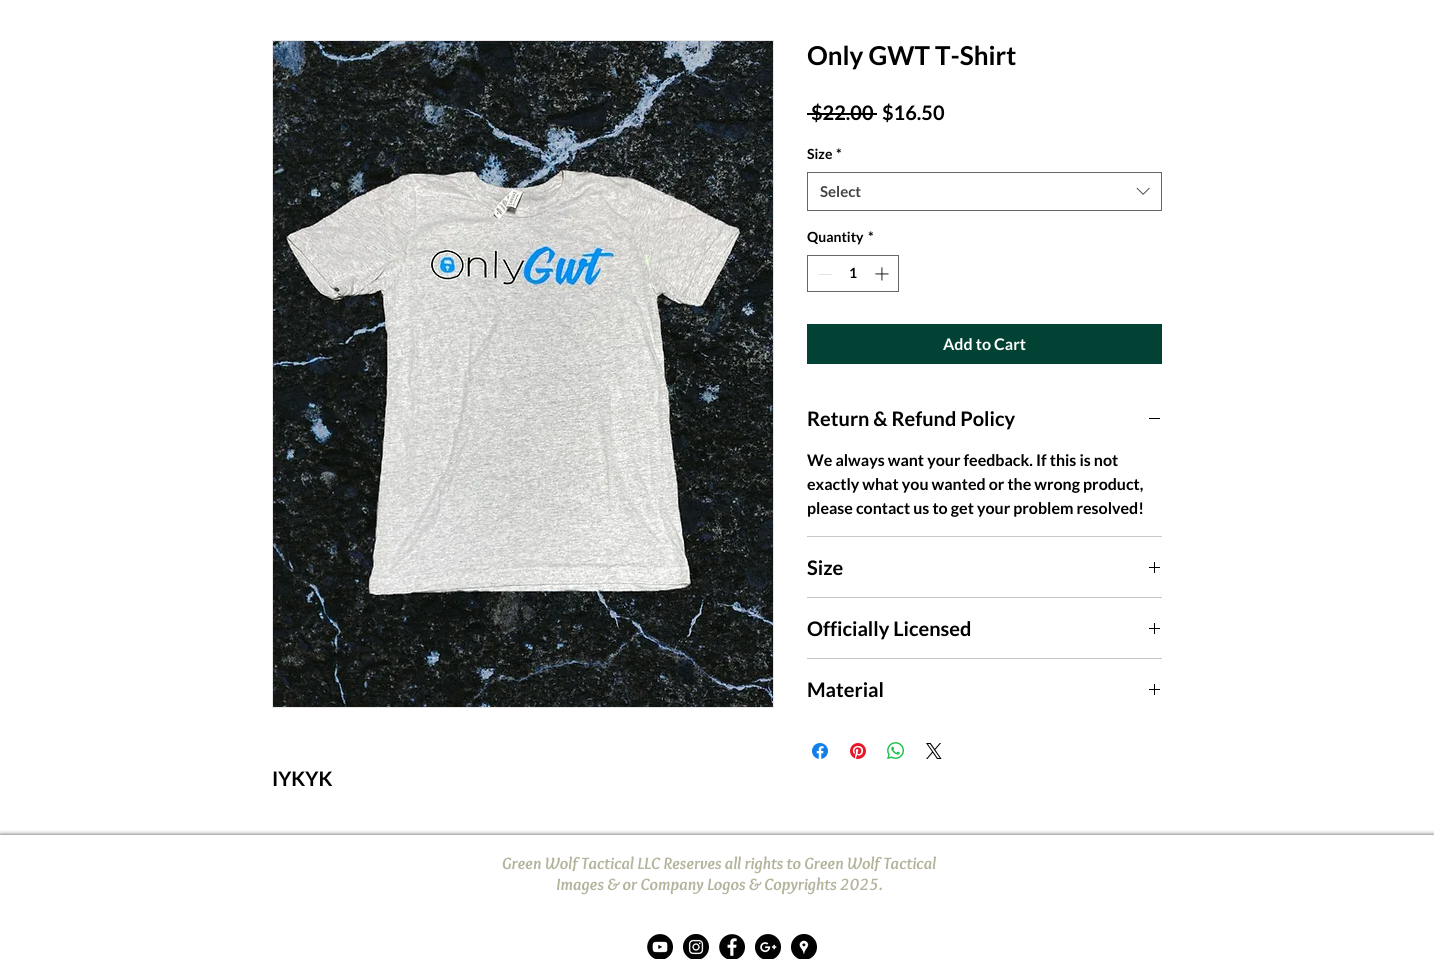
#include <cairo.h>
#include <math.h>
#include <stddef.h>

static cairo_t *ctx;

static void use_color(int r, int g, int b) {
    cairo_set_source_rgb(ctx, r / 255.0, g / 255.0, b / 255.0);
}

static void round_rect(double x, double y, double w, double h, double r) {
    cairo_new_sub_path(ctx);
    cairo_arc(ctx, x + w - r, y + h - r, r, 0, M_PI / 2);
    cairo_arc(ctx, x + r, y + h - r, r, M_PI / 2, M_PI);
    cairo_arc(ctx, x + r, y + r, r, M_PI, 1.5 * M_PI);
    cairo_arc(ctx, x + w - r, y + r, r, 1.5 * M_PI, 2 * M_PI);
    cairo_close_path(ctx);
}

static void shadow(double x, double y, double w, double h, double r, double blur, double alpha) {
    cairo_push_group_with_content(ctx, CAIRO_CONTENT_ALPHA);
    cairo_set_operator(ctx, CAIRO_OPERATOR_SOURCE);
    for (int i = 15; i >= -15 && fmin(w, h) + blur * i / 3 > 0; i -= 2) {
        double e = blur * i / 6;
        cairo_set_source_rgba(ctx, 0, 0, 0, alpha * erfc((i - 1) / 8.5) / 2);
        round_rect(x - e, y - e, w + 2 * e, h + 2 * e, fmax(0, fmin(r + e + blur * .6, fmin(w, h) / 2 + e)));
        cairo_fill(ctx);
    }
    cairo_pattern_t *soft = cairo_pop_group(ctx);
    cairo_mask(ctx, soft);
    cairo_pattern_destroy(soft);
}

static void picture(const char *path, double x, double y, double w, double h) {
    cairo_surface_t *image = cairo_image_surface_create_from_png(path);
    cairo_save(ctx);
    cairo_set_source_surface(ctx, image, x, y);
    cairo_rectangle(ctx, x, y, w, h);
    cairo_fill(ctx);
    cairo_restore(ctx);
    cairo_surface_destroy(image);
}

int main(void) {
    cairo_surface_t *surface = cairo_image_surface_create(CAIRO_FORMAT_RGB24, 1434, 959);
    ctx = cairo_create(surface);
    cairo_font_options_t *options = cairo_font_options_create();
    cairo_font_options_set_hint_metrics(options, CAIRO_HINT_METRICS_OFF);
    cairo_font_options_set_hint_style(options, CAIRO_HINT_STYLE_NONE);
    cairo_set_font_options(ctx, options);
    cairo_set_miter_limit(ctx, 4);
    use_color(255, 255, 255);
    cairo_paint(ctx);
    cairo_select_font_face(ctx, "Lato", CAIRO_FONT_SLANT_NORMAL, CAIRO_FONT_WEIGHT_BOLD);
    cairo_set_font_size(ctx, 26);
    use_color(0, 0, 0);
    cairo_move_to(ctx, 807, 65);
    cairo_show_text(ctx, "Only GWT T-Shirt");
    cairo_set_font_size(ctx, 20);
    cairo_move_to(ctx, 811, 120);
    cairo_show_text(ctx, "$22.00");
    cairo_rectangle(ctx, 807, 113, 70, 2);
    cairo_fill(ctx);
    cairo_move_to(ctx, 882, 120);
    cairo_show_text(ctx, "$16.50");
    cairo_set_font_size(ctx, 14);
    cairo_move_to(ctx, 807, 159);
    cairo_show_text(ctx, "Size");
    cairo_move_to(ctx, 836, 159);
    cairo_show_text(ctx, "*");
    cairo_rectangle(ctx, 807.5, 172.5, 354, 38);
    use_color(102, 102, 102);
    cairo_set_line_width(ctx, 1);
    cairo_stroke(ctx);
    cairo_set_font_size(ctx, 15);
    use_color(68, 68, 68);
    cairo_move_to(ctx, 820, 197);
    cairo_show_text(ctx, "Select");
    picture("img1.png", 1136, 187, 14, 8);
    cairo_set_font_size(ctx, 14);
    use_color(0, 0, 0);
    cairo_move_to(ctx, 807, 242);
    cairo_show_text(ctx, "Quantity");
    cairo_move_to(ctx, 868, 242);
    cairo_show_text(ctx, "*");
    cairo_rectangle(ctx, 807.5, 255.5, 91, 36);
    use_color(102, 102, 102);
    cairo_stroke(ctx);
    use_color(227, 227, 227);
    cairo_rectangle(ctx, 819, 274, 13, 1);
    cairo_fill(ctx);
    use_color(0, 0, 0);
    cairo_move_to(ctx, 849, 278);
    cairo_show_text(ctx, "1");
    picture("img2.png", 875, 267, 14, 14);
    use_color(1, 66, 53);
    cairo_rectangle(ctx, 807, 324, 355, 40);
    cairo_fill(ctx);
    cairo_set_font_size(ctx, 16);
    use_color(255, 255, 255);
    cairo_move_to(ctx, 943, 350);
    cairo_show_text(ctx, "Add to Cart");
    use_color(199, 199, 199);
    cairo_rectangle(ctx, 807, 536, 355, 1);
    cairo_fill(ctx);
    cairo_set_font_size(ctx, 20);
    use_color(0, 0, 0);
    cairo_move_to(ctx, 807, 426);
    cairo_show_text(ctx, "Return & Refund Policy");
    cairo_rectangle(ctx, 1149, 418, 11, 1);
    cairo_fill(ctx);
    cairo_set_font_size(ctx, 16);
    cairo_move_to(ctx, 807, 466);
    cairo_show_text(ctx, "We always want your feedback. If this is not");
    cairo_move_to(ctx, 807, 490);
    cairo_show_text(ctx, "exactly what you wanted or the wrong product,");
    cairo_move_to(ctx, 807, 514);
    cairo_show_text(ctx, "please contact us to get your problem resolved!");
    use_color(199, 199, 199);
    cairo_rectangle(ctx, 807, 597, 355, 1);
    cairo_fill(ctx);
    cairo_set_font_size(ctx, 20);
    use_color(0, 0, 0);
    cairo_move_to(ctx, 807, 575);
    cairo_show_text(ctx, "Size");
    picture("img3.png", 1149, 562, 11, 11);
    use_color(199, 199, 199);
    cairo_rectangle(ctx, 807, 658, 355, 1);
    cairo_fill(ctx);
    use_color(0, 0, 0);
    cairo_move_to(ctx, 807, 636);
    cairo_show_text(ctx, "Officially Licensed");
    picture("img3.png", 1149, 623, 11, 11);
    cairo_move_to(ctx, 807, 697);
    cairo_show_text(ctx, "Material");
    picture("img3.png", 1149, 684, 11, 11);
    picture("img4.png", 812, 743, 16, 16);
    picture("img5.png", 850, 743, 16, 16);
    picture("img6.png", 887, 742, 17, 17);
    picture("img7.png", 926, 743, 16, 16);
    cairo_rectangle(ctx, 272.5, 40.5, 501, 667);
    use_color(232, 230, 230);
    cairo_stroke(ctx);
    picture("img8.png", 273, 41, 500, 666);
    use_color(0, 0, 0);
    cairo_move_to(ctx, 272, 786);
    cairo_show_text(ctx, "IYKYK");
    cairo_save(ctx);
    cairo_rectangle(ctx, 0, 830, 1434, 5);
    cairo_clip(ctx);
    use_color(0, 0, 0);
    shadow(0, 835, 1434, 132, 0, 2.5, 0.7);
    cairo_restore(ctx);
    cairo_select_font_face(ctx, "Overlock", CAIRO_FONT_SLANT_ITALIC, CAIRO_FONT_WEIGHT_BOLD);
    cairo_set_font_size(ctx, 17);
    use_color(180, 179, 156);
    cairo_move_to(ctx, 502, 869);
    cairo_show_text(ctx, "Green Wolf Tactical LLC Reserves all rights to Green Wolf Tactical");
    cairo_move_to(ctx, 556, 890);
    cairo_show_text(ctx, "Images & or Company Logos & Copyrights 2025.");
    picture("img9.png", 647, 934, 26, 25);
    picture("img10.png", 683, 934, 26, 25);
    picture("img11.png", 719, 934, 26, 25);
    picture("img12.png", 755, 934, 26, 25);
    picture("img13.png", 791, 934, 26, 25);
    cairo_surface_write_to_png(surface, "result.png");
    cairo_font_options_destroy(options);
    cairo_destroy(ctx);
    cairo_surface_destroy(surface);
    return 0;
}
